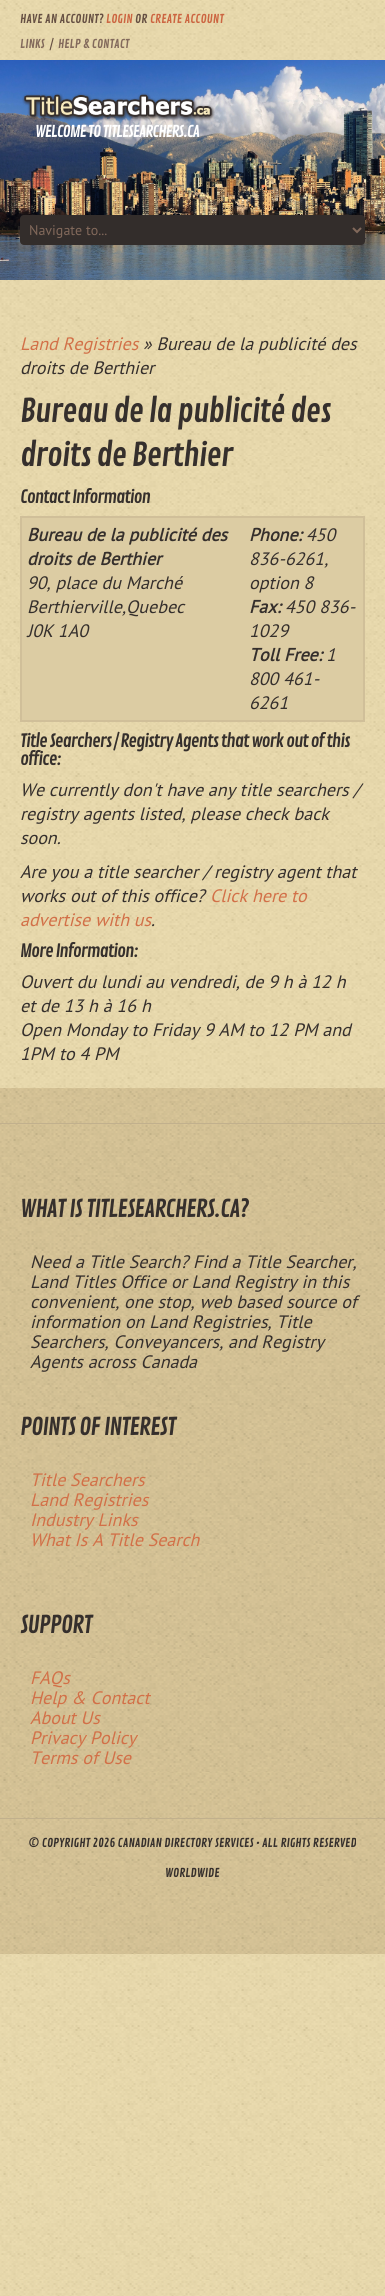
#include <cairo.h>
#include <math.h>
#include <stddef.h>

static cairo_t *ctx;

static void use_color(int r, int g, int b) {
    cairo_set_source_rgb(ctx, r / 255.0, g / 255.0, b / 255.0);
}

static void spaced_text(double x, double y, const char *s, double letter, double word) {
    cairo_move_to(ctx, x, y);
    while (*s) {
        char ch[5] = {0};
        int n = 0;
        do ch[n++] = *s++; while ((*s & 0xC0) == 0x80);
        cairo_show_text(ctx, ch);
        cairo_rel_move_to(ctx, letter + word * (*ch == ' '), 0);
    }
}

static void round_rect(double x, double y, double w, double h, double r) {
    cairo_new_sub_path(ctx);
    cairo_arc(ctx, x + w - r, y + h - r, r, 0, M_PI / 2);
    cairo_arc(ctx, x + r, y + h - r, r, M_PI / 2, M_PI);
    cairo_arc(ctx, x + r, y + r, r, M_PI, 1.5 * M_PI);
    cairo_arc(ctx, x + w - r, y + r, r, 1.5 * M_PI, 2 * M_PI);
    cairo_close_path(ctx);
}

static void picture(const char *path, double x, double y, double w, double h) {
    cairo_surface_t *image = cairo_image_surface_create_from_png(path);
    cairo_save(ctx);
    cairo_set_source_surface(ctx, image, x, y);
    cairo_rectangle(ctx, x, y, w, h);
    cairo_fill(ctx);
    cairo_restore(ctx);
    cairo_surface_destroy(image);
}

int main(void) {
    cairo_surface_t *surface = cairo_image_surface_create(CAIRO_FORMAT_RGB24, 385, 2296);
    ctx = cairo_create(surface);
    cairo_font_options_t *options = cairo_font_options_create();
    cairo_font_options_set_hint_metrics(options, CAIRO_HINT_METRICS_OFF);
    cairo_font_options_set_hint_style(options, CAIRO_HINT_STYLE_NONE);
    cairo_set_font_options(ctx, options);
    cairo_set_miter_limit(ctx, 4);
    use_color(255, 255, 255);
    cairo_paint(ctx);
    picture("img1.png", 0, 0, 385, 2296);
    cairo_select_font_face(ctx, "Contrail One", CAIRO_FONT_SLANT_NORMAL, CAIRO_FONT_WEIGHT_NORMAL);
    cairo_set_font_size(ctx, 12);
    use_color(102, 80, 67);
    cairo_move_to(ctx, 20, 23);
    cairo_show_text(ctx, "HAVE AN ACCOUNT?");
    use_color(204, 101, 65);
    cairo_move_to(ctx, 106, 23);
    cairo_show_text(ctx, "LOGIN");
    use_color(102, 80, 67);
    cairo_move_to(ctx, 135, 23);
    cairo_show_text(ctx, "OR");
    use_color(204, 101, 65);
    cairo_move_to(ctx, 150, 23);
    cairo_show_text(ctx, "CREATE ACCOUNT");
    use_color(130, 105, 91);
    cairo_move_to(ctx, 20, 48);
    cairo_show_text(ctx, "LINKS");
    use_color(102, 80, 67);
    cairo_move_to(ctx, 50, 48);
    cairo_show_text(ctx, "/");
    use_color(130, 105, 91);
    cairo_move_to(ctx, 58, 48);
    cairo_show_text(ctx, "HELP & CONTACT");
    picture("img2.png", 0, 60, 385, 220);
    picture("img3.png", 22, 93, 193, 28);
    cairo_set_font_size(ctx, 16);
    use_color(255, 255, 255);
    spaced_text(35, 137, "WELCOME TO TITLESEARCHERS.CA", -1, 0);
    use_color(51, 45, 43);
    round_rect(20, 215, 345, 30, 4);
    cairo_fill(ctx);
    cairo_new_path(ctx);
    cairo_move_to(ctx, 353, 228);
    cairo_line_to(ctx, 357, 232);
    cairo_line_to(ctx, 361, 228);
    use_color(130, 105, 91);
    cairo_stroke(ctx);
    cairo_select_font_face(ctx, "PT Sans", CAIRO_FONT_SLANT_NORMAL, CAIRO_FONT_WEIGHT_NORMAL);
    cairo_set_font_size(ctx, 14);
    cairo_move_to(ctx, 29, 235);
    cairo_show_text(ctx, "Navigate to...");
    cairo_select_font_face(ctx, "PT Sans", CAIRO_FONT_SLANT_ITALIC, CAIRO_FONT_WEIGHT_NORMAL);
    cairo_set_font_size(ctx, 18);
    use_color(210, 112, 72);
    cairo_move_to(ctx, 20, 350);
    cairo_show_text(ctx, "Land Registries");
    use_color(53, 47, 44);
    cairo_move_to(ctx, 143, 350);
    cairo_show_text(ctx, "» Bureau de la publicité des");
    cairo_move_to(ctx, 20, 374);
    cairo_show_text(ctx, "droits de Berthier");
    cairo_select_font_face(ctx, "Contrail One", CAIRO_FONT_SLANT_NORMAL, CAIRO_FONT_WEIGHT_NORMAL);
    cairo_set_font_size(ctx, 32);
    spaced_text(20, 422, "Bureau de la publicité des", -1, 0);
    spaced_text(20, 466, "droits de Berthier", -1, 0);
    cairo_set_font_size(ctx, 18);
    spaced_text(20, 503, "Contact Information", -1, 0);
    use_color(220, 204, 163);
    cairo_rectangle(ctx, 22, 518, 341, 202);
    cairo_fill(ctx);
    use_color(208, 191, 153);
    cairo_rectangle(ctx, 20, 516, 345, 2);
    cairo_fill(ctx);
    cairo_rectangle(ctx, 363, 516, 2, 206);
    cairo_fill(ctx);
    cairo_rectangle(ctx, 20, 720, 345, 2);
    cairo_fill(ctx);
    cairo_rectangle(ctx, 20, 516, 2, 206);
    cairo_fill(ctx);
    cairo_select_font_face(ctx, "PT Sans", CAIRO_FONT_SLANT_ITALIC, CAIRO_FONT_WEIGHT_BOLD);
    use_color(53, 47, 44);
    cairo_move_to(ctx, 27, 541);
    cairo_show_text(ctx, "Bureau de la publicité des");
    cairo_move_to(ctx, 27, 565);
    cairo_show_text(ctx, "droits de Berthier");
    cairo_select_font_face(ctx, "PT Sans", CAIRO_FONT_SLANT_ITALIC, CAIRO_FONT_WEIGHT_NORMAL);
    cairo_move_to(ctx, 27, 589);
    cairo_show_text(ctx, "90, place du Marché");
    cairo_move_to(ctx, 27, 613);
    cairo_show_text(ctx, "Berthierville,Quebec");
    cairo_move_to(ctx, 27, 637);
    cairo_show_text(ctx, "J0K 1A0");
    cairo_select_font_face(ctx, "PT Sans", CAIRO_FONT_SLANT_ITALIC, CAIRO_FONT_WEIGHT_BOLD);
    cairo_move_to(ctx, 249, 541);
    cairo_show_text(ctx, "Phone:");
    cairo_select_font_face(ctx, "PT Sans", CAIRO_FONT_SLANT_ITALIC, CAIRO_FONT_WEIGHT_NORMAL);
    cairo_move_to(ctx, 306, 541);
    cairo_show_text(ctx, "450");
    cairo_move_to(ctx, 249, 565);
    cairo_show_text(ctx, "836-6261,");
    cairo_move_to(ctx, 249, 589);
    cairo_show_text(ctx, "option 8");
    cairo_select_font_face(ctx, "PT Sans", CAIRO_FONT_SLANT_ITALIC, CAIRO_FONT_WEIGHT_BOLD);
    cairo_move_to(ctx, 249, 613);
    cairo_show_text(ctx, "Fax:");
    cairo_select_font_face(ctx, "PT Sans", CAIRO_FONT_SLANT_ITALIC, CAIRO_FONT_WEIGHT_NORMAL);
    cairo_move_to(ctx, 285, 613);
    cairo_show_text(ctx, "450 836-");
    cairo_move_to(ctx, 249, 637);
    cairo_show_text(ctx, "1029");
    cairo_select_font_face(ctx, "PT Sans", CAIRO_FONT_SLANT_ITALIC, CAIRO_FONT_WEIGHT_BOLD);
    cairo_move_to(ctx, 249, 661);
    cairo_show_text(ctx, "Toll Free:");
    cairo_select_font_face(ctx, "PT Sans", CAIRO_FONT_SLANT_ITALIC, CAIRO_FONT_WEIGHT_NORMAL);
    cairo_move_to(ctx, 326, 661);
    cairo_show_text(ctx, "1");
    cairo_move_to(ctx, 249, 685);
    cairo_show_text(ctx, "800 461-");
    cairo_move_to(ctx, 249, 709);
    cairo_show_text(ctx, "6261");
    cairo_select_font_face(ctx, "Contrail One", CAIRO_FONT_SLANT_NORMAL, CAIRO_FONT_WEIGHT_NORMAL);
    spaced_text(20, 747, "Title Searchers / Registry Agents that work out of this", -1, 0);
    spaced_text(20, 765, "office:", -1, 0);
    cairo_select_font_face(ctx, "PT Sans", CAIRO_FONT_SLANT_ITALIC, CAIRO_FONT_WEIGHT_NORMAL);
    cairo_move_to(ctx, 20, 796);
    cairo_show_text(ctx, "We currently don't have any title searchers /");
    cairo_move_to(ctx, 20, 820);
    cairo_show_text(ctx, "registry agents listed, please check back");
    cairo_move_to(ctx, 20, 844);
    cairo_show_text(ctx, "soon.");
    cairo_move_to(ctx, 20, 878);
    cairo_show_text(ctx, "Are you a title searcher / registry agent that");
    cairo_move_to(ctx, 20, 902);
    cairo_show_text(ctx, "works out of this office?");
    use_color(210, 112, 72);
    cairo_move_to(ctx, 210, 902);
    cairo_show_text(ctx, "Click here to");
    cairo_move_to(ctx, 20, 926);
    cairo_show_text(ctx, "advertise with us");
    use_color(53, 47, 44);
    cairo_move_to(ctx, 151, 926);
    cairo_show_text(ctx, ".");
    cairo_select_font_face(ctx, "Contrail One", CAIRO_FONT_SLANT_NORMAL, CAIRO_FONT_WEIGHT_NORMAL);
    spaced_text(20, 957, "More Information:", -1, 0);
    cairo_select_font_face(ctx, "PT Sans", CAIRO_FONT_SLANT_ITALIC, CAIRO_FONT_WEIGHT_NORMAL);
    cairo_move_to(ctx, 20, 988);
    cairo_show_text(ctx, "Ouvert du lundi au vendredi, de 9 h à 12 h");
    cairo_move_to(ctx, 20, 1012);
    cairo_show_text(ctx, "et de 13 h à 16 h");
    cairo_move_to(ctx, 20, 1036);
    cairo_show_text(ctx, "Open Monday to Friday 9 AM to 12 PM and");
    cairo_move_to(ctx, 20, 1060);
    cairo_show_text(ctx, "1PM to 4 PM");
    picture("img4.png", 0, 1088, 385, 866);
    use_color(193, 176, 141);
    cairo_rectangle(ctx, 0, 1123, 385, 1);
    cairo_fill(ctx);
    cairo_select_font_face(ctx, "Contrail One", CAIRO_FONT_SLANT_NORMAL, CAIRO_FONT_WEIGHT_NORMAL);
    cairo_set_font_size(ctx, 24);
    use_color(53, 47, 44);
    spaced_text(20, 1217, "WHAT IS TITLESEARCHERS.CA?", -1, 0);
    cairo_select_font_face(ctx, "PT Sans", CAIRO_FONT_SLANT_ITALIC, CAIRO_FONT_WEIGHT_NORMAL);
    cairo_set_font_size(ctx, 18);
    cairo_move_to(ctx, 30, 1268);
    cairo_show_text(ctx, "Need a Title Search? Find a Title Searcher,");
    cairo_move_to(ctx, 30, 1288);
    cairo_show_text(ctx, "Land Titles Office or Land Registry in this");
    cairo_move_to(ctx, 30, 1308);
    cairo_show_text(ctx, "convenient, one stop, web based source of");
    cairo_move_to(ctx, 30, 1328);
    cairo_show_text(ctx, "information on Land Registries, Title");
    cairo_move_to(ctx, 30, 1348);
    cairo_show_text(ctx, "Searchers, Conveyancers, and Registry");
    cairo_move_to(ctx, 30, 1368);
    cairo_show_text(ctx, "Agents across Canada");
    cairo_select_font_face(ctx, "Contrail One", CAIRO_FONT_SLANT_NORMAL, CAIRO_FONT_WEIGHT_NORMAL);
    cairo_set_font_size(ctx, 24);
    spaced_text(20, 1435, "POINTS OF INTEREST", -1, 0);
    cairo_select_font_face(ctx, "PT Sans", CAIRO_FONT_SLANT_ITALIC, CAIRO_FONT_WEIGHT_NORMAL);
    cairo_set_font_size(ctx, 18);
    use_color(210, 112, 72);
    cairo_move_to(ctx, 30, 1486);
    cairo_show_text(ctx, "Title Searchers");
    cairo_move_to(ctx, 30, 1506);
    cairo_show_text(ctx, "Land Registries");
    cairo_move_to(ctx, 30, 1526);
    cairo_show_text(ctx, "Industry Links");
    cairo_move_to(ctx, 30, 1546);
    cairo_show_text(ctx, "What Is A Title Search");
    cairo_select_font_face(ctx, "Contrail One", CAIRO_FONT_SLANT_NORMAL, CAIRO_FONT_WEIGHT_NORMAL);
    cairo_set_font_size(ctx, 24);
    use_color(53, 47, 44);
    spaced_text(20, 1633, "SUPPORT", -1, 0);
    cairo_select_font_face(ctx, "PT Sans", CAIRO_FONT_SLANT_ITALIC, CAIRO_FONT_WEIGHT_NORMAL);
    cairo_set_font_size(ctx, 18);
    use_color(210, 112, 72);
    cairo_move_to(ctx, 30, 1684);
    cairo_show_text(ctx, "FAQs");
    cairo_move_to(ctx, 30, 1704);
    cairo_show_text(ctx, "Help & Contact");
    cairo_move_to(ctx, 30, 1724);
    cairo_show_text(ctx, "About Us");
    cairo_move_to(ctx, 30, 1744);
    cairo_show_text(ctx, "Privacy Policy");
    cairo_move_to(ctx, 30, 1764);
    cairo_show_text(ctx, "Terms of Use");
    use_color(193, 176, 141);
    cairo_rectangle(ctx, 0, 1818, 385, 1);
    cairo_fill(ctx);
    cairo_select_font_face(ctx, "Contrail One", CAIRO_FONT_SLANT_NORMAL, CAIRO_FONT_WEIGHT_NORMAL);
    cairo_set_font_size(ctx, 12);
    use_color(53, 47, 44);
    cairo_move_to(ctx, 28, 1847);
    cairo_show_text(ctx, "© COPYRIGHT 2026 CANADIAN DIRECTORY SERVICES • ALL RIGHTS RESERVED");
    cairo_move_to(ctx, 165, 1877);
    cairo_show_text(ctx, "WORLDWIDE");
    cairo_surface_write_to_png(surface, "result.png");
    cairo_font_options_destroy(options);
    cairo_destroy(ctx);
    cairo_surface_destroy(surface);
    return 0;
}
